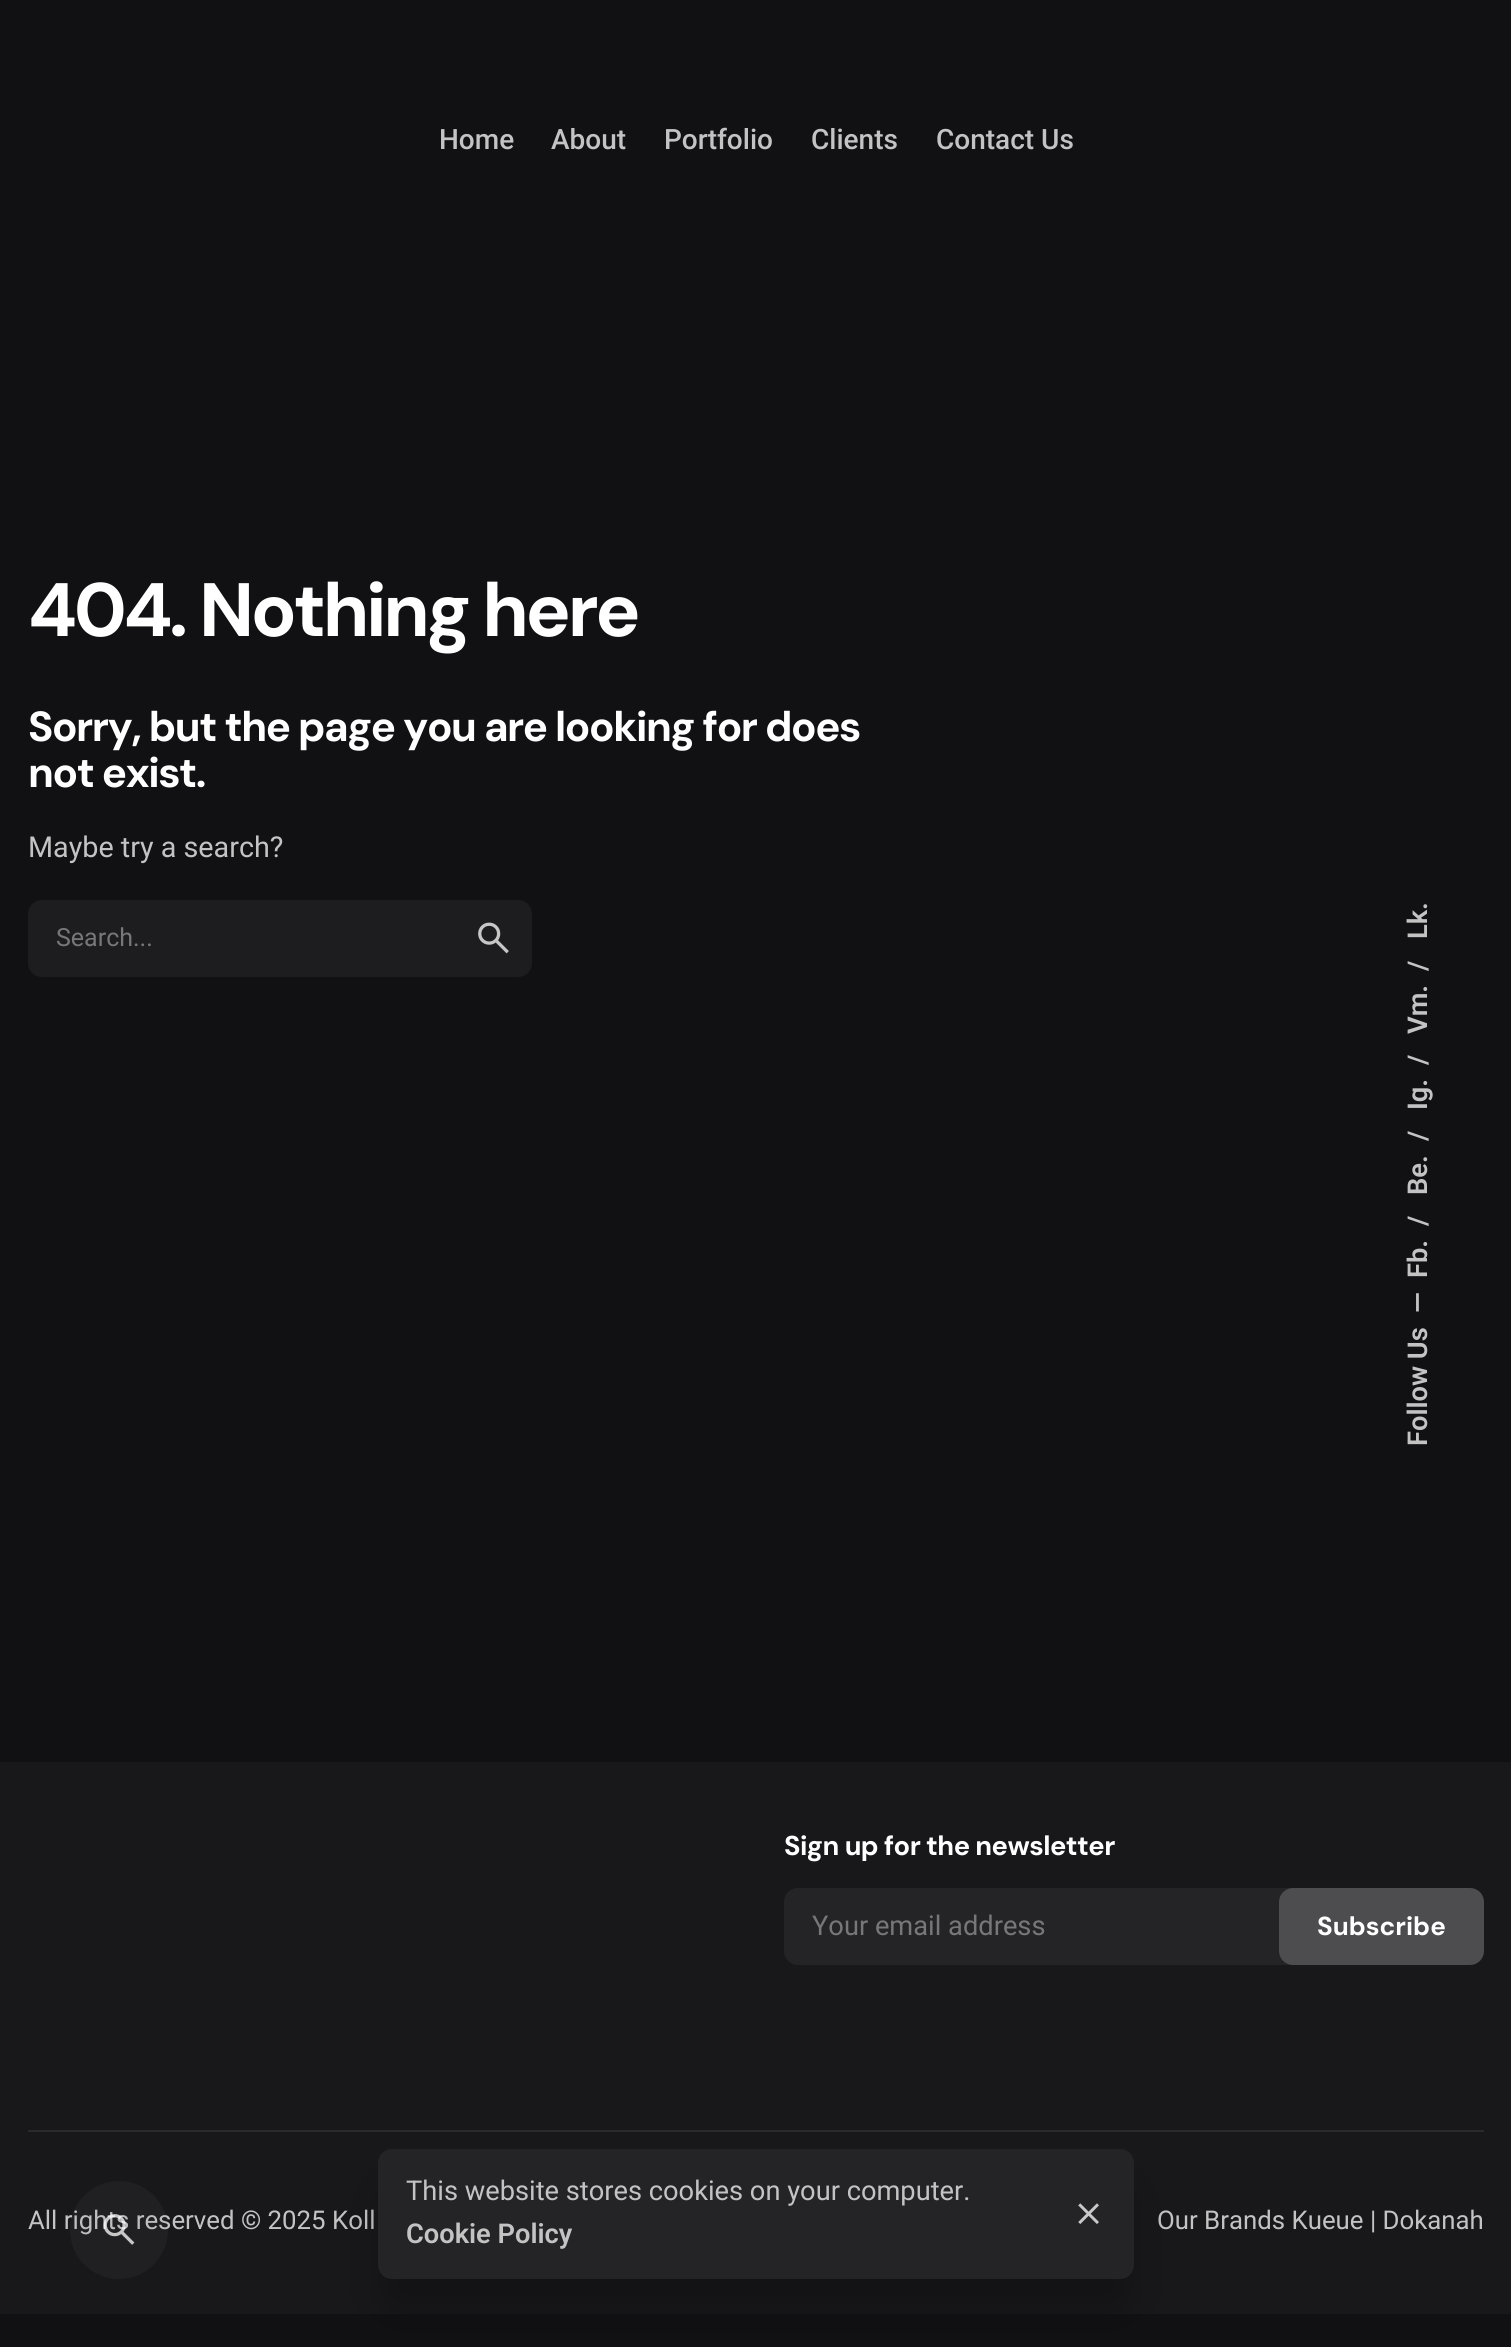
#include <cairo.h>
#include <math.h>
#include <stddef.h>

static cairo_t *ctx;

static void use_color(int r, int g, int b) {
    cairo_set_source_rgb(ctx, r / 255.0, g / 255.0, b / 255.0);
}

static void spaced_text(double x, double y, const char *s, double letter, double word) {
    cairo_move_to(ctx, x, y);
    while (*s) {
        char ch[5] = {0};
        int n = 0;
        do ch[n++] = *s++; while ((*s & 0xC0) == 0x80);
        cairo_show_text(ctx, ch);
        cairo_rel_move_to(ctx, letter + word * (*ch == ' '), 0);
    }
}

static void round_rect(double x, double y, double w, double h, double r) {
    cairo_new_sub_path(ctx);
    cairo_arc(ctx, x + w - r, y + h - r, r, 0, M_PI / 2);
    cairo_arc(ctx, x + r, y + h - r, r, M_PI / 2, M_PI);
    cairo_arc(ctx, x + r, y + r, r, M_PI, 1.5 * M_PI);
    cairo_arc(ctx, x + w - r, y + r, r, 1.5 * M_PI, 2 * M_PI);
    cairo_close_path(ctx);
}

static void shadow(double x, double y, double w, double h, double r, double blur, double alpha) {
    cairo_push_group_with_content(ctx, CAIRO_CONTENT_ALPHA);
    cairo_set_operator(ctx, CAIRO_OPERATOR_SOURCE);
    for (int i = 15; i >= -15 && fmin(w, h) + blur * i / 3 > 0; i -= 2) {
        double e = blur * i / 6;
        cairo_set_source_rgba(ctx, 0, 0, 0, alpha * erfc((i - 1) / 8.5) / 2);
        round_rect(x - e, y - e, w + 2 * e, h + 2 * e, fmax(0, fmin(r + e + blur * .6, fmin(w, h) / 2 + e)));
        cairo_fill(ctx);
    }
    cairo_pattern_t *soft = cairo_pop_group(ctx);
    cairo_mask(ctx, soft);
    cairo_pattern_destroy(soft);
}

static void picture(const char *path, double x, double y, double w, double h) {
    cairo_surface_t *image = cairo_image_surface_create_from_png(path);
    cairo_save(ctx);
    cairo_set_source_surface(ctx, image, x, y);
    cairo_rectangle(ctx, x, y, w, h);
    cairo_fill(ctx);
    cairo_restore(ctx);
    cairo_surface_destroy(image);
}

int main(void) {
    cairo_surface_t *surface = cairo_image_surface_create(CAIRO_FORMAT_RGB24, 1511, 2347);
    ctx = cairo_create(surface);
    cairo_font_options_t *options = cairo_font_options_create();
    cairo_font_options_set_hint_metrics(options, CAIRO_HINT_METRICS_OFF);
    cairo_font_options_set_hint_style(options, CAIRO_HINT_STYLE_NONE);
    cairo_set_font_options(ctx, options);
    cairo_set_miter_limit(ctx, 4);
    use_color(17, 16, 19);
    cairo_paint(ctx);
    cairo_select_font_face(ctx, "Roboto Medium", CAIRO_FONT_SLANT_NORMAL, CAIRO_FONT_WEIGHT_NORMAL);
    cairo_set_font_size(ctx, 28);
    use_color(196, 195, 196);
    cairo_move_to(ctx, 439, 149);
    cairo_show_text(ctx, "Home");
    cairo_move_to(ctx, 551, 149);
    cairo_show_text(ctx, "About");
    cairo_move_to(ctx, 664, 149);
    cairo_show_text(ctx, "Portfolio");
    cairo_move_to(ctx, 811, 149);
    cairo_show_text(ctx, "Clients");
    cairo_move_to(ctx, 936, 149);
    cairo_show_text(ctx, "Contact Us");
    cairo_select_font_face(ctx, "DM Sans", CAIRO_FONT_SLANT_NORMAL, CAIRO_FONT_WEIGHT_BOLD);
    cairo_set_font_size(ctx, 75.5);
    use_color(255, 255, 255);
    spaced_text(28, 636, "404. Nothing here", -3.4, 0);
    cairo_set_font_size(ctx, 42);
    spaced_text(28, 741, "Sorry, but the page you are looking for does", -1.45, 0);
    spaced_text(28, 787, "not exist.", -1.45, 0);
    cairo_select_font_face(ctx, "Roboto", CAIRO_FONT_SLANT_NORMAL, CAIRO_FONT_WEIGHT_NORMAL);
    cairo_set_font_size(ctx, 28.75);
    use_color(196, 195, 196);
    cairo_move_to(ctx, 28, 857);
    cairo_show_text(ctx, "Maybe try a search?");
    use_color(29, 28, 31);
    round_rect(28, 900, 504, 77, 14);
    cairo_fill(ctx);
    cairo_set_font_size(ctx, 25);
    use_color(119, 119, 121);
    cairo_move_to(ctx, 56, 946);
    cairo_show_text(ctx, "Search...");
    picture("img1.png", 478, 922, 31, 32);
    cairo_select_font_face(ctx, "Roboto SemiBold", CAIRO_FONT_SLANT_NORMAL, CAIRO_FONT_WEIGHT_NORMAL);
    cairo_set_font_size(ctx, 27.25);
    use_color(196, 195, 196);
    cairo_save(ctx);
    cairo_translate(ctx, 1427, 939);
    cairo_rotate(ctx, -90 * M_PI / 180);
    cairo_move_to(ctx, 0, 0);
    cairo_show_text(ctx, "Lk.");
    cairo_restore(ctx);
    cairo_save(ctx);
    cairo_translate(ctx, 1427, 971);
    cairo_rotate(ctx, -90 * M_PI / 180);
    cairo_move_to(ctx, 0, 0);
    cairo_show_text(ctx, "/");
    cairo_restore(ctx);
    cairo_save(ctx);
    cairo_translate(ctx, 1427, 1034);
    cairo_rotate(ctx, -90 * M_PI / 180);
    cairo_move_to(ctx, 0, 0);
    cairo_show_text(ctx, "Vm.");
    cairo_restore(ctx);
    cairo_save(ctx);
    cairo_translate(ctx, 1427, 1065);
    cairo_rotate(ctx, -90 * M_PI / 180);
    cairo_move_to(ctx, 0, 0);
    cairo_show_text(ctx, "/");
    cairo_restore(ctx);
    cairo_save(ctx);
    cairo_translate(ctx, 1427, 1110);
    cairo_rotate(ctx, -90 * M_PI / 180);
    cairo_move_to(ctx, 0, 0);
    cairo_show_text(ctx, "Ig.");
    cairo_restore(ctx);
    cairo_save(ctx);
    cairo_translate(ctx, 1427, 1141);
    cairo_rotate(ctx, -90 * M_PI / 180);
    cairo_move_to(ctx, 0, 0);
    cairo_show_text(ctx, "/");
    cairo_restore(ctx);
    cairo_save(ctx);
    cairo_translate(ctx, 1427, 1195);
    cairo_rotate(ctx, -90 * M_PI / 180);
    cairo_move_to(ctx, 0, 0);
    cairo_show_text(ctx, "Be.");
    cairo_restore(ctx);
    cairo_save(ctx);
    cairo_translate(ctx, 1427, 1226);
    cairo_rotate(ctx, -90 * M_PI / 180);
    cairo_move_to(ctx, 0, 0);
    cairo_show_text(ctx, "/");
    cairo_restore(ctx);
    cairo_save(ctx);
    cairo_translate(ctx, 1427, 1278);
    cairo_rotate(ctx, -90 * M_PI / 180);
    cairo_move_to(ctx, 0, 0);
    cairo_show_text(ctx, "Fb.");
    cairo_restore(ctx);
    cairo_save(ctx);
    cairo_translate(ctx, 1427, 1313);
    cairo_rotate(ctx, -90 * M_PI / 180);
    cairo_move_to(ctx, 0, 0);
    cairo_show_text(ctx, "—");
    cairo_restore(ctx);
    cairo_save(ctx);
    cairo_translate(ctx, 1427, 1446);
    cairo_rotate(ctx, -90 * M_PI / 180);
    cairo_move_to(ctx, 0, 0);
    cairo_show_text(ctx, "Follow Us");
    cairo_restore(ctx);
    use_color(24, 23, 26);
    cairo_rectangle(ctx, 0, 1762, 1511, 552);
    cairo_fill(ctx);
    cairo_select_font_face(ctx, "DM Sans", CAIRO_FONT_SLANT_NORMAL, CAIRO_FONT_WEIGHT_BOLD);
    use_color(255, 255, 255);
    spaced_text(784, 1855, "Sign up for the newsletter", -0.55, 0);
    use_color(36, 35, 37);
    round_rect(784, 1888, 700, 77, 14);
    cairo_fill(ctx);
    cairo_select_font_face(ctx, "Roboto", CAIRO_FONT_SLANT_NORMAL, CAIRO_FONT_WEIGHT_NORMAL);
    use_color(119, 119, 121);
    cairo_move_to(ctx, 812, 1935);
    cairo_show_text(ctx, "Your email address");
    use_color(77, 76, 78);
    round_rect(1279, 1888, 205, 77, 14);
    cairo_fill(ctx);
    cairo_select_font_face(ctx, "DM Sans", CAIRO_FONT_SLANT_NORMAL, CAIRO_FONT_WEIGHT_BOLD);
    cairo_set_font_size(ctx, 26);
    use_color(255, 255, 255);
    cairo_move_to(ctx, 1317, 1935);
    cairo_show_text(ctx, "Subscribe");
    use_color(42, 41, 44);
    cairo_rectangle(ctx, 28, 2130, 1456, 2);
    cairo_fill(ctx);
    cairo_select_font_face(ctx, "Roboto", CAIRO_FONT_SLANT_NORMAL, CAIRO_FONT_WEIGHT_NORMAL);
    cairo_set_font_size(ctx, 25.8);
    use_color(196, 195, 196);
    cairo_move_to(ctx, 28, 2229);
    cairo_show_text(ctx, "All rights reserved © 2025 Koll");
    cairo_move_to(ctx, 1157, 2229);
    cairo_show_text(ctx, "Our Brands Kueue | Dokanah");
    cairo_set_source_rgba(ctx, 0.533, 0.533, 0.537, 0.08);
    cairo_new_path(ctx);
    cairo_arc(ctx, 119, 2230, 49, 0, 2 * M_PI);
    cairo_fill(ctx);
    picture("img2.png", 103, 2214, 32, 31);
    use_color(0, 0, 0);
    shadow(392, 2198, 728, 102, 0, 28, 0.3);
    use_color(36, 35, 38);
    round_rect(378, 2149, 756, 130, 14);
    cairo_fill(ctx);
    cairo_set_font_size(ctx, 27.25);
    use_color(196, 195, 196);
    cairo_move_to(ctx, 406, 2200);
    cairo_show_text(ctx, "This website stores cookies on your computer.");
    cairo_select_font_face(ctx, "Roboto SemiBold", CAIRO_FONT_SLANT_NORMAL, CAIRO_FONT_WEIGHT_NORMAL);
    cairo_move_to(ctx, 406, 2243);
    cairo_show_text(ctx, "Cookie Policy");
    picture("img3.png", 1078, 2203, 21, 21);
    cairo_surface_write_to_png(surface, "result.png");
    cairo_font_options_destroy(options);
    cairo_destroy(ctx);
    cairo_surface_destroy(surface);
    return 0;
}
